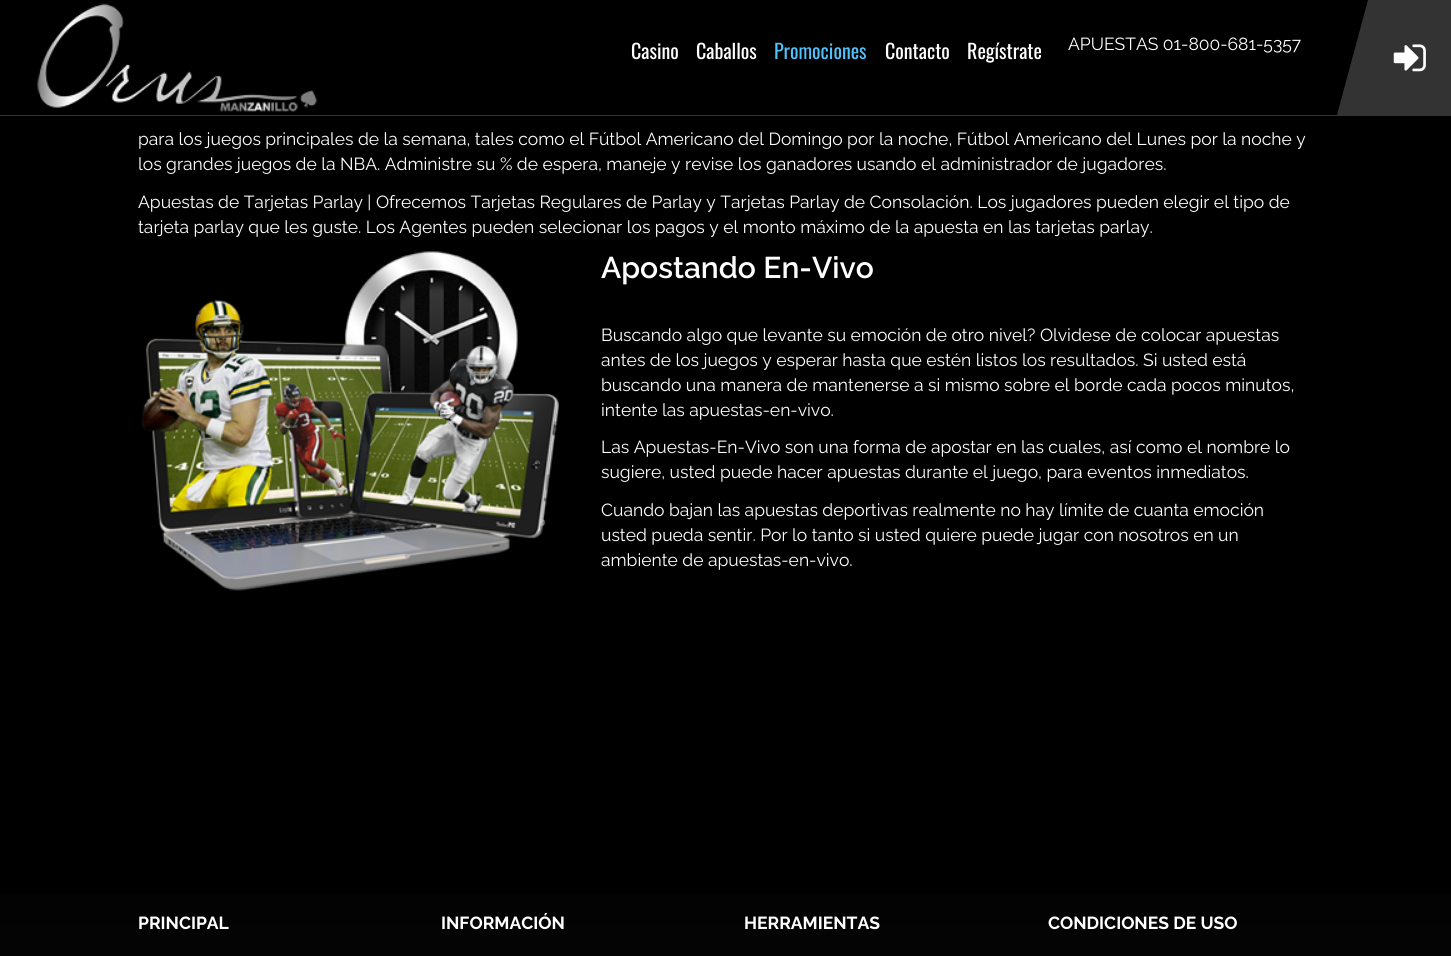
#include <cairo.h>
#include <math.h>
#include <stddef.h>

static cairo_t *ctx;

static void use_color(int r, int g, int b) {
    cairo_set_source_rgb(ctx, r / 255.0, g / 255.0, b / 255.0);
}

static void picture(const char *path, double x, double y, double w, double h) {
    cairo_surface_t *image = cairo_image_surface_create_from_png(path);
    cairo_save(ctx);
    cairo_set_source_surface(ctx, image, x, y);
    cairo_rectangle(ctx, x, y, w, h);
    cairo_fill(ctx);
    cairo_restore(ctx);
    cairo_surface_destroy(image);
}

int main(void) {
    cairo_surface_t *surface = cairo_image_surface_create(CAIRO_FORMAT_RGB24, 1451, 956);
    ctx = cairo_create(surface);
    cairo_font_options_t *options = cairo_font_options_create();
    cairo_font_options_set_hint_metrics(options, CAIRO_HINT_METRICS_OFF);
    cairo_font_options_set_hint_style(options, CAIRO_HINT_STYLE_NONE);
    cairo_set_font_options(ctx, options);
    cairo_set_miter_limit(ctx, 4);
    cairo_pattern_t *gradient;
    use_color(0, 0, 0);
    cairo_paint(ctx);
    cairo_set_source_rgba(ctx, 1, 1, 1, 0.2);
    cairo_rectangle(ctx, 0, 115, 1451, 1);
    cairo_fill(ctx);
    picture("img1.png", 37, 3, 281, 109);
    cairo_select_font_face(ctx, "Oswald", CAIRO_FONT_SLANT_NORMAL, CAIRO_FONT_WEIGHT_NORMAL);
    cairo_set_font_size(ctx, 20);
    use_color(255, 255, 255);
    cairo_move_to(ctx, 631, 59);
    cairo_show_text(ctx, "Casino");
    cairo_move_to(ctx, 696, 59);
    cairo_show_text(ctx, "Caballos");
    use_color(80, 193, 250);
    cairo_move_to(ctx, 774, 59);
    cairo_show_text(ctx, "Promociones");
    use_color(255, 255, 255);
    cairo_move_to(ctx, 885, 59);
    cairo_show_text(ctx, "Contacto");
    cairo_move_to(ctx, 967, 59);
    cairo_show_text(ctx, "Regístrate");
    cairo_select_font_face(ctx, "Raleway", CAIRO_FONT_SLANT_NORMAL, CAIRO_FONT_WEIGHT_NORMAL);
    cairo_set_font_size(ctx, 17.5);
    cairo_move_to(ctx, 1068, 50);
    cairo_show_text(ctx, "APUESTAS 01-800-681-5357");
    use_color(51, 51, 51);
    cairo_rectangle(ctx, 1369, 0, 82, 115);
    cairo_fill(ctx);
    cairo_new_path(ctx);
    cairo_move_to(ctx, 1368, 0);
    cairo_line_to(ctx, 1400, 0);
    cairo_line_to(ctx, 1369, 115);
    cairo_line_to(ctx, 1337, 115);
    cairo_close_path(ctx);
    cairo_fill(ctx);
    picture("img2.png", 1393, 44, 33, 28);
    use_color(255, 255, 255);
    cairo_move_to(ctx, 138, 145);
    cairo_show_text(ctx, "para los juegos principales de la semana, tales como el Fútbol Americano del Domingo por la noche, Fútbol Americano del Lunes por la noche y");
    cairo_move_to(ctx, 138, 170);
    cairo_show_text(ctx, "los grandes juegos de la NBA. Administre su % de espera, maneje y revise los ganadores usando el administrador de jugadores.");
    cairo_move_to(ctx, 138, 208);
    cairo_show_text(ctx, "Apuestas de Tarjetas Parlay | Ofrecemos Tarjetas Regulares de Parlay y Tarjetas Parlay de Consolación. Los jugadores pueden elegir el tipo de");
    cairo_move_to(ctx, 138, 233);
    cairo_show_text(ctx, "tarjeta parlay que les guste. Los Agentes pueden selecionar los pagos y el monto máximo de la apuesta en las tarjetas parlay.");
    picture("img3.png", 141, 251, 418, 340);
    cairo_select_font_face(ctx, "Raleway SemiBold", CAIRO_FONT_SLANT_NORMAL, CAIRO_FONT_WEIGHT_NORMAL);
    cairo_set_font_size(ctx, 30);
    cairo_move_to(ctx, 601, 278);
    cairo_show_text(ctx, "Apostando En-Vivo");
    cairo_select_font_face(ctx, "Raleway", CAIRO_FONT_SLANT_NORMAL, CAIRO_FONT_WEIGHT_NORMAL);
    cairo_set_font_size(ctx, 17.5);
    cairo_move_to(ctx, 601, 341);
    cairo_show_text(ctx, "Buscando algo que levante su emoción de otro nivel? Olvidese de colocar apuestas");
    cairo_move_to(ctx, 601, 366);
    cairo_show_text(ctx, "antes de los juegos y esperar hasta que estén listos los resultados. Si usted está");
    cairo_move_to(ctx, 601, 391);
    cairo_show_text(ctx, "buscando una manera de mantenerse a si mismo sobre el borde cada pocos minutos,");
    cairo_move_to(ctx, 601, 416);
    cairo_show_text(ctx, "intente las apuestas-en-vivo.");
    cairo_move_to(ctx, 601, 453);
    cairo_show_text(ctx, "Las Apuestas-En-Vivo son una forma de apostar en las cuales, así como el nombre lo");
    cairo_move_to(ctx, 601, 478);
    cairo_show_text(ctx, "sugiere, usted puede hacer apuestas durante el juego, para eventos inmediatos.");
    cairo_move_to(ctx, 601, 516);
    cairo_show_text(ctx, "Cuando bajan las apuestas deportivas realmente no hay límite de cuanta emoción");
    cairo_move_to(ctx, 601, 541);
    cairo_show_text(ctx, "usted pueda sentir. Por lo tanto si usted quiere puede jugar con nosotros en un");
    cairo_move_to(ctx, 601, 566);
    cairo_show_text(ctx, "ambiente de apuestas-en-vivo.");
    gradient = cairo_pattern_create_linear(0, 814, 0, 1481);
    cairo_pattern_add_color_stop_rgba(gradient, 0, 0, 0, 0, 1);
    cairo_pattern_add_color_stop_rgba(gradient, 1, 0.082, 0.082, 0.082, 1);
    cairo_set_source(ctx, gradient);
    cairo_pattern_destroy(gradient);
    cairo_rectangle(ctx, 0, 893, 1451, 63);
    cairo_fill(ctx);
    cairo_select_font_face(ctx, "Raleway", CAIRO_FONT_SLANT_NORMAL, CAIRO_FONT_WEIGHT_BOLD);
    use_color(255, 255, 255);
    cairo_move_to(ctx, 138, 929);
    cairo_show_text(ctx, "PRINCIPAL");
    cairo_move_to(ctx, 441, 929);
    cairo_show_text(ctx, "INFORMACIÓN");
    cairo_move_to(ctx, 744, 929);
    cairo_show_text(ctx, "HERRAMIENTAS");
    cairo_move_to(ctx, 1048, 929);
    cairo_show_text(ctx, "CONDICIONES DE USO");
    cairo_surface_write_to_png(surface, "result.png");
    cairo_font_options_destroy(options);
    cairo_destroy(ctx);
    cairo_surface_destroy(surface);
    return 0;
}
